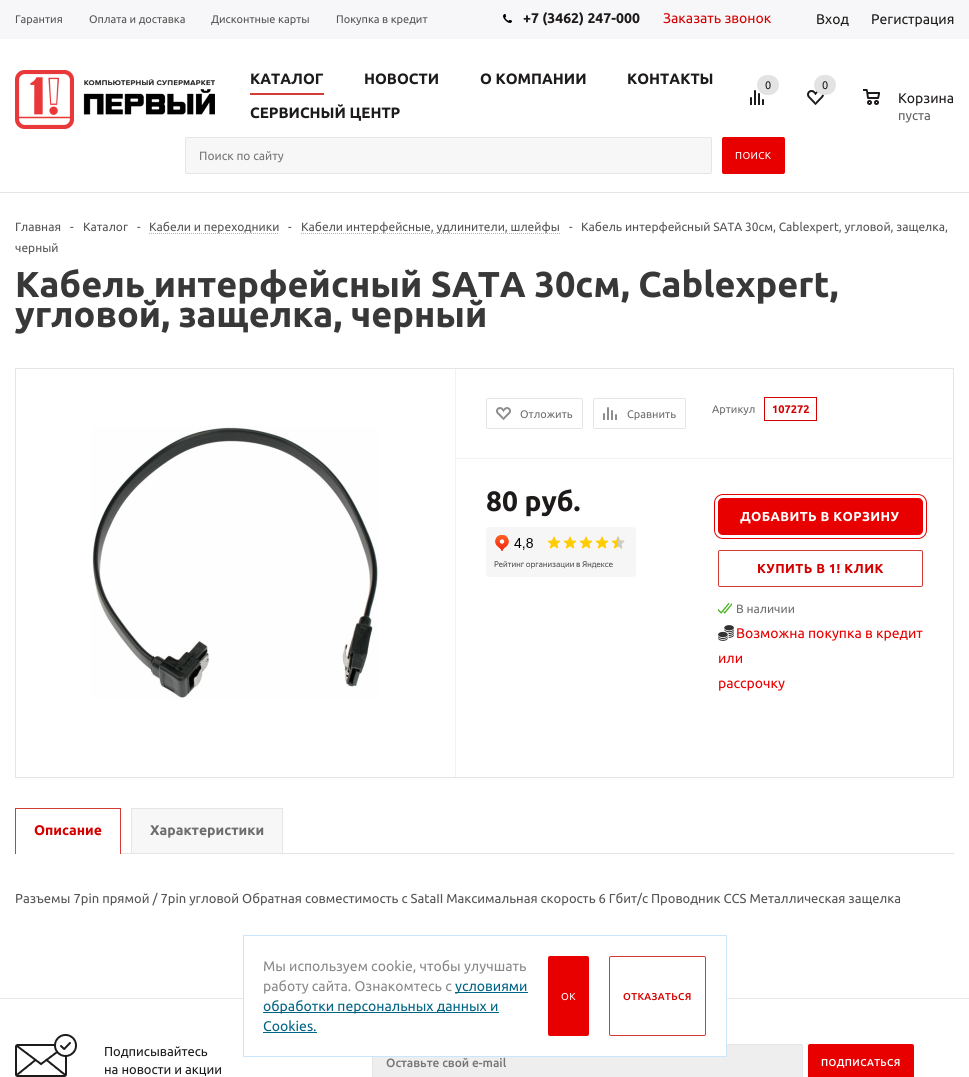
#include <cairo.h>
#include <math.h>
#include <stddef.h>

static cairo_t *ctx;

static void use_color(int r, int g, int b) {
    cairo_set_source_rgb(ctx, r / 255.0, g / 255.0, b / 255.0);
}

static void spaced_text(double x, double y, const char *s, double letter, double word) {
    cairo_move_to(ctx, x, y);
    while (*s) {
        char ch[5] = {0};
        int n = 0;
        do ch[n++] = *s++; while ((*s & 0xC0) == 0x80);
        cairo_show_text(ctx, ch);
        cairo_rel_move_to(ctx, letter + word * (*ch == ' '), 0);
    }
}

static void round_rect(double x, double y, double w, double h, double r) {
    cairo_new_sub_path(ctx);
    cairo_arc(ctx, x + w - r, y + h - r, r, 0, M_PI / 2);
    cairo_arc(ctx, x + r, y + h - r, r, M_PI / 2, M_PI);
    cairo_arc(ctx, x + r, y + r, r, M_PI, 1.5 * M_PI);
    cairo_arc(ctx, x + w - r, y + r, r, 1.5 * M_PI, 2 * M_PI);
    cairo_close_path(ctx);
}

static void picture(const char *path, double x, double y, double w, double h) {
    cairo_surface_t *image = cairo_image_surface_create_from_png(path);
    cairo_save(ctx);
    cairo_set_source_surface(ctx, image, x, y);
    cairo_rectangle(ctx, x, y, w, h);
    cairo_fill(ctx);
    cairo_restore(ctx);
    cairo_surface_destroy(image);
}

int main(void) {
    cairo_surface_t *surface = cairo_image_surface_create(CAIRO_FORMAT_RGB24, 969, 1077);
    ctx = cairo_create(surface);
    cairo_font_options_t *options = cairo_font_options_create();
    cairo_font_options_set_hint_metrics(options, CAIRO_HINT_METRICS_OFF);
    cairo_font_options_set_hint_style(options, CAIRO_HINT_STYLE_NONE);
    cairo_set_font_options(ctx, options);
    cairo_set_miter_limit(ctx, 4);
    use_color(255, 255, 255);
    cairo_paint(ctx);
    use_color(247, 247, 249);
    cairo_rectangle(ctx, 0, 0, 969, 39);
    cairo_fill(ctx);
    cairo_select_font_face(ctx, "Ubuntu", CAIRO_FONT_SLANT_NORMAL, CAIRO_FONT_WEIGHT_NORMAL);
    cairo_set_font_size(ctx, 11);
    use_color(84, 84, 84);
    cairo_move_to(ctx, 15, 23);
    cairo_show_text(ctx, "Гарантия");
    cairo_move_to(ctx, 89, 23);
    cairo_show_text(ctx, "Оплата и доставка");
    cairo_move_to(ctx, 211, 23);
    cairo_show_text(ctx, "Дисконтные карты");
    cairo_move_to(ctx, 336, 23);
    cairo_show_text(ctx, "Покупка в кредит");
    picture("img1.png", 503, 14, 9, 9);
    cairo_select_font_face(ctx, "Ubuntu", CAIRO_FONT_SLANT_NORMAL, CAIRO_FONT_WEIGHT_BOLD);
    cairo_set_font_size(ctx, 14);
    use_color(29, 26, 26);
    cairo_move_to(ctx, 523, 23);
    cairo_show_text(ctx, "+7 (3462) 247-000");
    cairo_select_font_face(ctx, "Ubuntu", CAIRO_FONT_SLANT_NORMAL, CAIRO_FONT_WEIGHT_NORMAL);
    use_color(212, 0, 0);
    cairo_move_to(ctx, 663, 23);
    cairo_show_text(ctx, "Заказать звонок");
    use_color(29, 26, 26);
    cairo_move_to(ctx, 816, 24);
    cairo_show_text(ctx, "Вход");
    cairo_move_to(ctx, 871, 24);
    cairo_show_text(ctx, "Регистрация");
    use_color(229, 229, 229);
    cairo_rectangle(ctx, 0, 192, 969, 1);
    cairo_fill(ctx);
    picture("img2.png", 15, 70, 200, 59);
    use_color(213, 60, 55);
    cairo_rectangle(ctx, 250, 93, 74, 2);
    cairo_fill(ctx);
    cairo_select_font_face(ctx, "Ubuntu", CAIRO_FONT_SLANT_NORMAL, CAIRO_FONT_WEIGHT_BOLD);
    cairo_set_font_size(ctx, 15);
    use_color(29, 26, 26);
    cairo_move_to(ctx, 250, 84);
    cairo_show_text(ctx, "КАТАЛОГ");
    cairo_move_to(ctx, 364, 84);
    cairo_show_text(ctx, "НОВОСТИ");
    cairo_move_to(ctx, 480, 84);
    cairo_show_text(ctx, "О КОМПАНИИ");
    cairo_move_to(ctx, 627, 84);
    cairo_show_text(ctx, "КОНТАКТЫ");
    cairo_move_to(ctx, 250, 118);
    cairo_show_text(ctx, "СЕРВИСНЫЙ ЦЕНТР");
    picture("img3.png", 750, 90, 14, 15);
    use_color(227, 227, 227);
    round_rect(757, 75, 22, 20, 10);
    cairo_fill(ctx);
    cairo_select_font_face(ctx, "Ubuntu", CAIRO_FONT_SLANT_NORMAL, CAIRO_FONT_WEIGHT_NORMAL);
    cairo_set_font_size(ctx, 11);
    use_color(29, 26, 26);
    cairo_move_to(ctx, 765, 89);
    cairo_show_text(ctx, "0");
    picture("img4.png", 807, 90, 17, 15);
    use_color(227, 227, 227);
    round_rect(814, 75, 22, 20, 10);
    cairo_fill(ctx);
    use_color(29, 26, 26);
    cairo_move_to(ctx, 822, 89);
    cairo_show_text(ctx, "0");
    picture("img5.png", 863, 89, 17, 16);
    cairo_set_font_size(ctx, 14);
    cairo_move_to(ctx, 898, 103);
    cairo_show_text(ctx, "Корзина");
    cairo_set_font_size(ctx, 13);
    use_color(95, 95, 95);
    cairo_move_to(ctx, 898, 120);
    cairo_show_text(ctx, "пуста");
    use_color(247, 247, 247);
    round_rect(185.5, 137.5, 526, 36, 1.5);
    cairo_fill_preserve(ctx);
    use_color(229, 229, 229);
    cairo_set_line_width(ctx, 1);
    cairo_stroke(ctx);
    cairo_set_font_size(ctx, 12);
    use_color(117, 117, 117);
    cairo_move_to(ctx, 199, 160);
    cairo_show_text(ctx, "Поиск по сайту");
    use_color(232, 0, 0);
    round_rect(722, 137, 63, 37, 2);
    cairo_fill(ctx);
    cairo_set_font_size(ctx, 10);
    use_color(255, 255, 255);
    spaced_text(735, 159, "ПОИСК", 0.4, 0);
    cairo_set_font_size(ctx, 12);
    use_color(84, 84, 84);
    cairo_move_to(ctx, 15, 231);
    cairo_show_text(ctx, "Главная");
    cairo_move_to(ctx, 70, 231);
    cairo_show_text(ctx, "-");
    cairo_move_to(ctx, 83, 231);
    cairo_show_text(ctx, "Каталог");
    cairo_move_to(ctx, 137, 231);
    cairo_show_text(ctx, "-");
    cairo_new_path(ctx);
    cairo_move_to(ctx, 149, 233.5);
    cairo_line_to(ctx, 279, 233.5);
    use_color(180, 180, 180);
    cairo_set_dash(ctx, (double[]){1, 1}, 2, 0);
    cairo_stroke(ctx);
    use_color(84, 84, 84);
    cairo_move_to(ctx, 149, 231);
    cairo_show_text(ctx, "Кабели и переходники");
    cairo_move_to(ctx, 288, 231);
    cairo_show_text(ctx, "-");
    cairo_new_path(ctx);
    cairo_move_to(ctx, 301, 233.5);
    cairo_line_to(ctx, 560, 233.5);
    use_color(180, 180, 180);
    cairo_stroke(ctx);
    use_color(84, 84, 84);
    cairo_move_to(ctx, 301, 231);
    cairo_show_text(ctx, "Кабели интерфейсные, удлинители, шлейфы");
    cairo_move_to(ctx, 569, 231);
    cairo_show_text(ctx, "-");
    cairo_move_to(ctx, 581, 231);
    cairo_show_text(ctx, "Кабель интерфейсный SATA 30см, Cablexpert, угловой, защелка,");
    cairo_move_to(ctx, 15, 252);
    cairo_show_text(ctx, "черный");
    cairo_select_font_face(ctx, "Ubuntu", CAIRO_FONT_SLANT_NORMAL, CAIRO_FONT_WEIGHT_BOLD);
    cairo_set_font_size(ctx, 36);
    use_color(56, 56, 56);
    cairo_move_to(ctx, 15, 297);
    cairo_show_text(ctx, "Кабель интерфейсный SATA 30см, Cablexpert,");
    cairo_move_to(ctx, 15, 327);
    cairo_show_text(ctx, "угловой, защелка, черный");
    cairo_rectangle(ctx, 15.5, 368.5, 938, 409);
    use_color(229, 229, 229);
    cairo_set_dash(ctx, NULL, 0, 0);
    cairo_stroke(ctx);
    picture("img6.png", 91, 426, 288, 274);
    use_color(242, 242, 242);
    cairo_rectangle(ctx, 455, 369, 1, 408);
    cairo_fill(ctx);
    cairo_rectangle(ctx, 456, 458, 497, 1);
    cairo_fill(ctx);
    round_rect(486.5, 398.5, 96, 30, 1.5);
    use_color(229, 229, 229);
    cairo_stroke(ctx);
    picture("img7.png", 496, 407, 15, 13);
    cairo_select_font_face(ctx, "Ubuntu", CAIRO_FONT_SLANT_NORMAL, CAIRO_FONT_WEIGHT_NORMAL);
    cairo_set_font_size(ctx, 11);
    use_color(109, 109, 109);
    cairo_move_to(ctx, 520, 418);
    cairo_show_text(ctx, "Отложить");
    round_rect(593.5, 398.5, 92, 30, 1.5);
    use_color(229, 229, 229);
    cairo_stroke(ctx);
    picture("img8.png", 603, 407, 14, 13);
    use_color(109, 109, 109);
    cairo_move_to(ctx, 627, 418);
    cairo_show_text(ctx, "Сравнить");
    cairo_move_to(ctx, 712, 413);
    cairo_show_text(ctx, "Артикул");
    cairo_rectangle(ctx, 764.5, 397.5, 52, 23);
    use_color(212, 0, 0);
    cairo_stroke(ctx);
    cairo_select_font_face(ctx, "Ubuntu", CAIRO_FONT_SLANT_NORMAL, CAIRO_FONT_WEIGHT_BOLD);
    cairo_move_to(ctx, 772, 413);
    cairo_show_text(ctx, "107272");
    cairo_set_font_size(ctx, 28);
    use_color(29, 26, 26);
    cairo_move_to(ctx, 486, 511);
    cairo_show_text(ctx, "80 руб.");
    picture("img9.png", 486, 527, 150, 50);
    round_rect(716, 496, 209, 41, 7);
    use_color(232, 0, 0);
    cairo_set_line_width(ctx, 4);
    cairo_stroke(ctx);
    round_rect(716.5, 496.5, 208, 40, 6.5);
    use_color(255, 255, 255);
    cairo_set_line_width(ctx, 3);
    cairo_stroke(ctx);
    use_color(232, 0, 0);
    round_rect(718, 498, 205, 37, 5);
    cairo_fill(ctx);
    cairo_set_font_size(ctx, 13);
    use_color(255, 255, 255);
    spaced_text(740, 521, "ДОБАВИТЬ В КОРЗИНУ", 0.4, 0);
    round_rect(718.5, 550.5, 204, 36, 1.5);
    use_color(213, 60, 55);
    cairo_set_line_width(ctx, 1);
    cairo_stroke(ctx);
    use_color(212, 0, 0);
    spaced_text(757, 573, "КУПИТЬ В 1! КЛИК", 0.4, 0);
    picture("img10.png", 718, 602, 14, 12);
    cairo_select_font_face(ctx, "Ubuntu", CAIRO_FONT_SLANT_NORMAL, CAIRO_FONT_WEIGHT_NORMAL);
    cairo_set_font_size(ctx, 12);
    use_color(109, 109, 109);
    cairo_move_to(ctx, 736, 613);
    cairo_show_text(ctx, "В наличии");
    picture("img11.png", 718, 625, 16, 16);
    cairo_set_font_size(ctx, 14);
    use_color(232, 0, 0);
    cairo_move_to(ctx, 736, 638);
    cairo_show_text(ctx, "Возможна покупка в кредит");
    cairo_move_to(ctx, 718, 663);
    cairo_show_text(ctx, "или");
    cairo_move_to(ctx, 718, 688);
    cairo_show_text(ctx, "рассрочку");
    cairo_save(ctx);
    cairo_rectangle(ctx, 15, 798, 939, 56);
    cairo_clip(ctx);
    cairo_rectangle(ctx, 15.5, 808.5, 105, 46);
    use_color(213, 60, 55);
    cairo_stroke(ctx);
    cairo_restore(ctx);
    cairo_select_font_face(ctx, "Ubuntu", CAIRO_FONT_SLANT_NORMAL, CAIRO_FONT_WEIGHT_BOLD);
    use_color(212, 0, 0);
    cairo_move_to(ctx, 34, 835);
    cairo_show_text(ctx, "Описание");
    use_color(247, 247, 247);
    cairo_rectangle(ctx, 132, 809, 150, 44);
    cairo_fill(ctx);
    cairo_save(ctx);
    cairo_rectangle(ctx, 15, 798, 939, 56);
    cairo_clip(ctx);
    cairo_rectangle(ctx, 131.5, 808.5, 151, 46);
    use_color(229, 229, 229);
    cairo_stroke(ctx);
    cairo_restore(ctx);
    use_color(109, 109, 109);
    cairo_move_to(ctx, 150, 835);
    cairo_show_text(ctx, "Характеристики");
    use_color(229, 229, 229);
    cairo_rectangle(ctx, 121, 853, 833, 1);
    cairo_fill(ctx);
    cairo_select_font_face(ctx, "Ubuntu", CAIRO_FONT_SLANT_NORMAL, CAIRO_FONT_WEIGHT_NORMAL);
    cairo_set_font_size(ctx, 13);
    use_color(84, 84, 84);
    cairo_move_to(ctx, 15, 903);
    cairo_show_text(ctx, "Разъемы 7pin прямой / 7pin угловой Обратная совместимость с SataII Максимальная скорость 6 Гбит/с Проводник CCS Металлическая защелка");
    use_color(231, 231, 231);
    cairo_rectangle(ctx, 0, 998, 969, 1);
    cairo_fill(ctx);
    use_color(238, 238, 238);
    round_rect(372.5, 1044.5, 430, 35, 1.5);
    cairo_fill_preserve(ctx);
    use_color(229, 229, 229);
    cairo_stroke(ctx);
    use_color(255, 255, 255);
    cairo_rectangle(ctx, 244, 998, 482, 58);
    cairo_fill(ctx);
    cairo_rectangle(ctx, 243.5, 935.5, 483, 121);
    use_color(201, 230, 251);
    cairo_stroke(ctx);
    cairo_set_font_size(ctx, 14);
    use_color(136, 136, 136);
    cairo_move_to(ctx, 263, 971);
    cairo_show_text(ctx, "Мы используем cookie, чтобы улучшать");
    cairo_move_to(ctx, 263, 991);
    cairo_show_text(ctx, "работу сайта. Ознакомтесь с");
    use_color(0, 100, 132);
    cairo_rectangle(ctx, 455, 992, 73, 1);
    cairo_fill(ctx);
    cairo_move_to(ctx, 455, 991);
    cairo_show_text(ctx, "условиями");
    cairo_rectangle(ctx, 263, 1012, 236, 1);
    cairo_fill(ctx);
    cairo_move_to(ctx, 263, 1011);
    cairo_show_text(ctx, "обработки персональных данных и");
    cairo_move_to(ctx, 263, 1031);
    cairo_show_text(ctx, "Cookies.");
    cairo_rectangle(ctx, 263, 1032, 54, 1);
    cairo_fill(ctx);
    use_color(232, 0, 0);
    round_rect(548, 956, 41, 80, 2);
    cairo_fill(ctx);
    cairo_set_font_size(ctx, 10);
    use_color(255, 255, 255);
    spaced_text(561, 1000, "ОК", 0.4, 0);
    round_rect(609.5, 956.5, 96, 79, 1.5);
    use_color(213, 60, 55);
    cairo_stroke(ctx);
    cairo_select_font_face(ctx, "Ubuntu Medium", CAIRO_FONT_SLANT_NORMAL, CAIRO_FONT_WEIGHT_NORMAL);
    use_color(212, 0, 0);
    spaced_text(623, 1000, "ОТКАЗАТЬСЯ", 0.4, 0);
    picture("img12.png", 15, 1034, 62, 43);
    cairo_select_font_face(ctx, "Ubuntu", CAIRO_FONT_SLANT_NORMAL, CAIRO_FONT_WEIGHT_NORMAL);
    cairo_set_font_size(ctx, 13);
    use_color(29, 26, 26);
    cairo_move_to(ctx, 104, 1056);
    cairo_show_text(ctx, "Подписывайтесь");
    cairo_move_to(ctx, 104, 1074);
    cairo_show_text(ctx, "на новости и акции");
    cairo_select_font_face(ctx, "Ubuntu Medium", CAIRO_FONT_SLANT_NORMAL, CAIRO_FONT_WEIGHT_NORMAL);
    cairo_set_font_size(ctx, 12);
    use_color(117, 117, 117);
    cairo_move_to(ctx, 386, 1067);
    cairo_show_text(ctx, "Оставьте свой e-mail");
    use_color(232, 0, 0);
    round_rect(808, 1044, 106, 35, 2);
    cairo_fill(ctx);
    cairo_set_font_size(ctx, 10);
    use_color(255, 255, 255);
    spaced_text(821, 1066, "ПОДПИСАТЬСЯ", 0.4, 0);
    cairo_surface_write_to_png(surface, "result.png");
    cairo_font_options_destroy(options);
    cairo_destroy(ctx);
    cairo_surface_destroy(surface);
    return 0;
}
